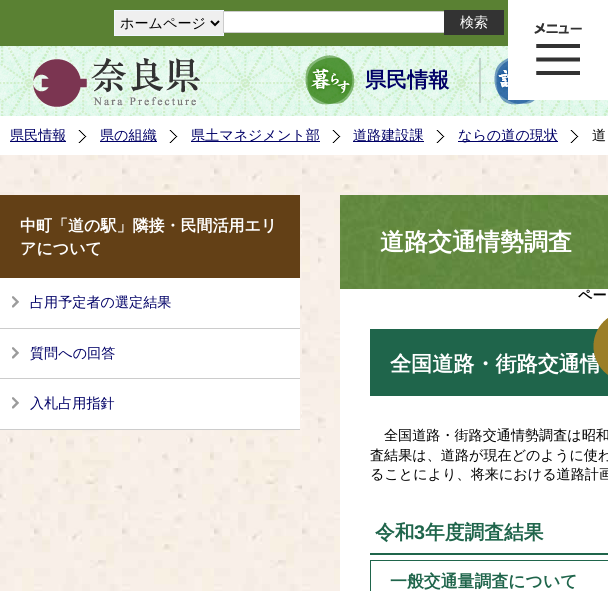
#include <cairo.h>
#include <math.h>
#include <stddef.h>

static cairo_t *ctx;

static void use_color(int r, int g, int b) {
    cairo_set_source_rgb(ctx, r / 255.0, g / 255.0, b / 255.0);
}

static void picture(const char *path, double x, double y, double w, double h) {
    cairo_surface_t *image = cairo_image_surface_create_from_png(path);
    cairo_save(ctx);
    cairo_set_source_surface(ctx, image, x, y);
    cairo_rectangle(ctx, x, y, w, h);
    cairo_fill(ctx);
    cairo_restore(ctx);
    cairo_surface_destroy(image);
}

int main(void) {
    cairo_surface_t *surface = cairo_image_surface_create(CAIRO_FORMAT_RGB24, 608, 591);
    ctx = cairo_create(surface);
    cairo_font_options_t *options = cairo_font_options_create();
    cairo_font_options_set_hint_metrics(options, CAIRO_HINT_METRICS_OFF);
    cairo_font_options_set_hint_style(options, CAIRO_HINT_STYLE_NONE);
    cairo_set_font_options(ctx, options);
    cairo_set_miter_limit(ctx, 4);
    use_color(255, 255, 255);
    cairo_paint(ctx);
    picture("img1.png", 0, 155, 608, 436);
    use_color(90, 129, 51);
    cairo_rectangle(ctx, 0, 0, 508, 46);
    cairo_fill(ctx);
    use_color(239, 239, 239);
    cairo_rectangle(ctx, 114.5, 10.5, 109, 25);
    cairo_fill_preserve(ctx);
    use_color(240, 248, 255);
    cairo_set_line_width(ctx, 1);
    cairo_stroke(ctx);
    cairo_new_path(ctx);
    cairo_move_to(ctx, 211, 21);
    cairo_line_to(ctx, 215, 25);
    cairo_line_to(ctx, 219, 21);
    use_color(0, 0, 0);
    cairo_set_line_width(ctx, 2);
    cairo_stroke(ctx);
    cairo_select_font_face(ctx, "WenQuanYi Zen Hei Medium", CAIRO_FONT_SLANT_NORMAL, CAIRO_FONT_WEIGHT_NORMAL);
    cairo_set_font_size(ctx, 14.1);
    cairo_move_to(ctx, 120, 28);
    cairo_show_text(ctx, "ホームページ");
    use_color(255, 255, 255);
    cairo_rectangle(ctx, 223.5, 11.5, 221, 21);
    cairo_fill_preserve(ctx);
    use_color(204, 204, 204);
    cairo_set_line_width(ctx, 1);
    cairo_stroke(ctx);
    use_color(51, 51, 51);
    cairo_rectangle(ctx, 444, 10, 60, 25);
    cairo_fill(ctx);
    use_color(255, 255, 255);
    cairo_move_to(ctx, 460, 27);
    cairo_show_text(ctx, "検索");
    picture("img3.png", 0, 46, 608, 70);
    picture("img2.png", 31, 56, 171, 53);
    picture("img4.png", 305, 55, 50, 50);
    cairo_select_font_face(ctx, "WenQuanYi Zen Hei", CAIRO_FONT_SLANT_NORMAL, CAIRO_FONT_WEIGHT_BOLD);
    cairo_set_font_size(ctx, 21.1);
    use_color(0, 0, 102);
    cairo_move_to(ctx, 365, 87);
    cairo_show_text(ctx, "県民情報");
    cairo_set_source_rgba(ctx, 0.408, 0.408, 0.408, 0.25);
    cairo_rectangle(ctx, 479, 58, 2, 45);
    cairo_fill(ctx);
    picture("img5.png", 494, 58, 41, 47);
    picture("img6.png", 508, 0, 100, 100);
    use_color(0, 0, 102);
    cairo_rectangle(ctx, 10, 141, 56, 1);
    cairo_fill(ctx);
    cairo_select_font_face(ctx, "WenQuanYi Zen Hei Medium", CAIRO_FONT_SLANT_NORMAL, CAIRO_FONT_WEIGHT_NORMAL);
    cairo_set_font_size(ctx, 14.1);
    cairo_move_to(ctx, 10, 140);
    cairo_show_text(ctx, "県民情報");
    picture("img7.png", 78, 130, 9, 13);
    cairo_rectangle(ctx, 100, 141, 57, 1);
    cairo_fill(ctx);
    cairo_move_to(ctx, 100, 140);
    cairo_show_text(ctx, "県の組織");
    picture("img7.png", 169, 130, 9, 13);
    cairo_rectangle(ctx, 191, 141, 129, 1);
    cairo_fill(ctx);
    cairo_move_to(ctx, 191, 140);
    cairo_show_text(ctx, "県土マネジメント部");
    picture("img7.png", 332, 130, 9, 13);
    cairo_rectangle(ctx, 353, 141, 71, 1);
    cairo_fill(ctx);
    cairo_move_to(ctx, 353, 140);
    cairo_show_text(ctx, "道路建設課");
    picture("img7.png", 436, 130, 9, 13);
    cairo_rectangle(ctx, 458, 141, 100, 1);
    cairo_fill(ctx);
    cairo_move_to(ctx, 458, 140);
    cairo_show_text(ctx, "ならの道の現状");
    picture("img7.png", 570, 130, 9, 13);
    use_color(0, 0, 0);
    cairo_move_to(ctx, 592, 140);
    cairo_show_text(ctx, "道");
    use_color(255, 255, 255);
    cairo_rectangle(ctx, 0, 278, 300, 151);
    cairo_fill(ctx);
    use_color(99, 64, 22);
    cairo_rectangle(ctx, 0, 195, 300, 83);
    cairo_fill(ctx);
    cairo_select_font_face(ctx, "WenQuanYi Zen Hei", CAIRO_FONT_SLANT_NORMAL, CAIRO_FONT_WEIGHT_BOLD);
    cairo_set_font_size(ctx, 16);
    use_color(255, 255, 255);
    cairo_move_to(ctx, 20, 231);
    cairo_show_text(ctx, "中町「道の駅」隣接・民間活用エリ");
    cairo_move_to(ctx, 20, 254);
    cairo_show_text(ctx, "アについて");
    use_color(204, 204, 204);
    cairo_rectangle(ctx, 0, 328, 300, 1);
    cairo_fill(ctx);
    picture("img8.png", 12, 296, 7, 12);
    cairo_select_font_face(ctx, "WenQuanYi Zen Hei Medium", CAIRO_FONT_SLANT_NORMAL, CAIRO_FONT_WEIGHT_NORMAL);
    cairo_set_font_size(ctx, 14.1);
    use_color(0, 0, 102);
    cairo_move_to(ctx, 30, 307);
    cairo_show_text(ctx, "占用予定者の選定結果");
    use_color(204, 204, 204);
    cairo_rectangle(ctx, 0, 378, 300, 1);
    cairo_fill(ctx);
    picture("img8.png", 12, 347, 7, 12);
    use_color(0, 0, 102);
    cairo_move_to(ctx, 30, 358);
    cairo_show_text(ctx, "質問への回答");
    use_color(204, 204, 204);
    cairo_rectangle(ctx, 0, 429, 300, 1);
    cairo_fill(ctx);
    picture("img8.png", 12, 397, 7, 12);
    use_color(0, 0, 102);
    cairo_move_to(ctx, 30, 408);
    cairo_show_text(ctx, "入札占用指針");
    use_color(255, 255, 255);
    cairo_rectangle(ctx, 340, 289, 268, 302);
    cairo_fill(ctx);
    picture("img9.png", 340, 195, 268, 94);
    cairo_select_font_face(ctx, "WenQuanYi Zen Hei", CAIRO_FONT_SLANT_NORMAL, CAIRO_FONT_WEIGHT_BOLD);
    cairo_set_font_size(ctx, 24);
    cairo_move_to(ctx, 380, 250);
    cairo_show_text(ctx, "道路交通情勢調査");
    use_color(31, 101, 75);
    cairo_rectangle(ctx, 370, 329, 238, 67);
    cairo_fill(ctx);
    cairo_set_font_size(ctx, 21.1);
    use_color(255, 255, 255);
    cairo_move_to(ctx, 390, 371);
    cairo_show_text(ctx, "全国道路・街路交通情");
    cairo_select_font_face(ctx, "WenQuanYi Zen Hei Medium", CAIRO_FONT_SLANT_NORMAL, CAIRO_FONT_WEIGHT_NORMAL);
    cairo_set_font_size(ctx, 14.1);
    use_color(0, 0, 0);
    cairo_move_to(ctx, 384, 440);
    cairo_show_text(ctx, "全国道路・街路交通情勢調査は昭和");
    cairo_move_to(ctx, 370, 460);
    cairo_show_text(ctx, "査結果は、道路が現在どのように使わ");
    cairo_move_to(ctx, 370, 479);
    cairo_show_text(ctx, "ることにより、将来における道路計画");
    use_color(31, 101, 75);
    cairo_rectangle(ctx, 370, 553, 238, 2);
    cairo_fill(ctx);
    cairo_select_font_face(ctx, "WenQuanYi Zen Hei", CAIRO_FONT_SLANT_NORMAL, CAIRO_FONT_WEIGHT_BOLD);
    cairo_set_font_size(ctx, 19.75);
    cairo_move_to(ctx, 375, 539);
    cairo_show_text(ctx, "令和");
    cairo_select_font_face(ctx, "Liberation Sans", CAIRO_FONT_SLANT_NORMAL, CAIRO_FONT_WEIGHT_BOLD);
    cairo_move_to(ctx, 414, 539);
    cairo_show_text(ctx, "3");
    cairo_select_font_face(ctx, "WenQuanYi Zen Hei", CAIRO_FONT_SLANT_NORMAL, CAIRO_FONT_WEIGHT_BOLD);
    cairo_move_to(ctx, 425, 539);
    cairo_show_text(ctx, "年度調査結果");
    cairo_rectangle(ctx, 370.5, 560.5, 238, 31);
    cairo_stroke(ctx);
    cairo_set_font_size(ctx, 16.9);
    cairo_move_to(ctx, 390, 587);
    cairo_show_text(ctx, "一般交通量調査について");
    picture("img10.png", 593, 318, 15, 57);
    cairo_set_font_size(ctx, 14.1);
    use_color(0, 0, 0);
    cairo_move_to(ctx, 578, 300);
    cairo_show_text(ctx, "ペー");
    cairo_surface_write_to_png(surface, "result.png");
    cairo_font_options_destroy(options);
    cairo_destroy(ctx);
    cairo_surface_destroy(surface);
    return 0;
}
